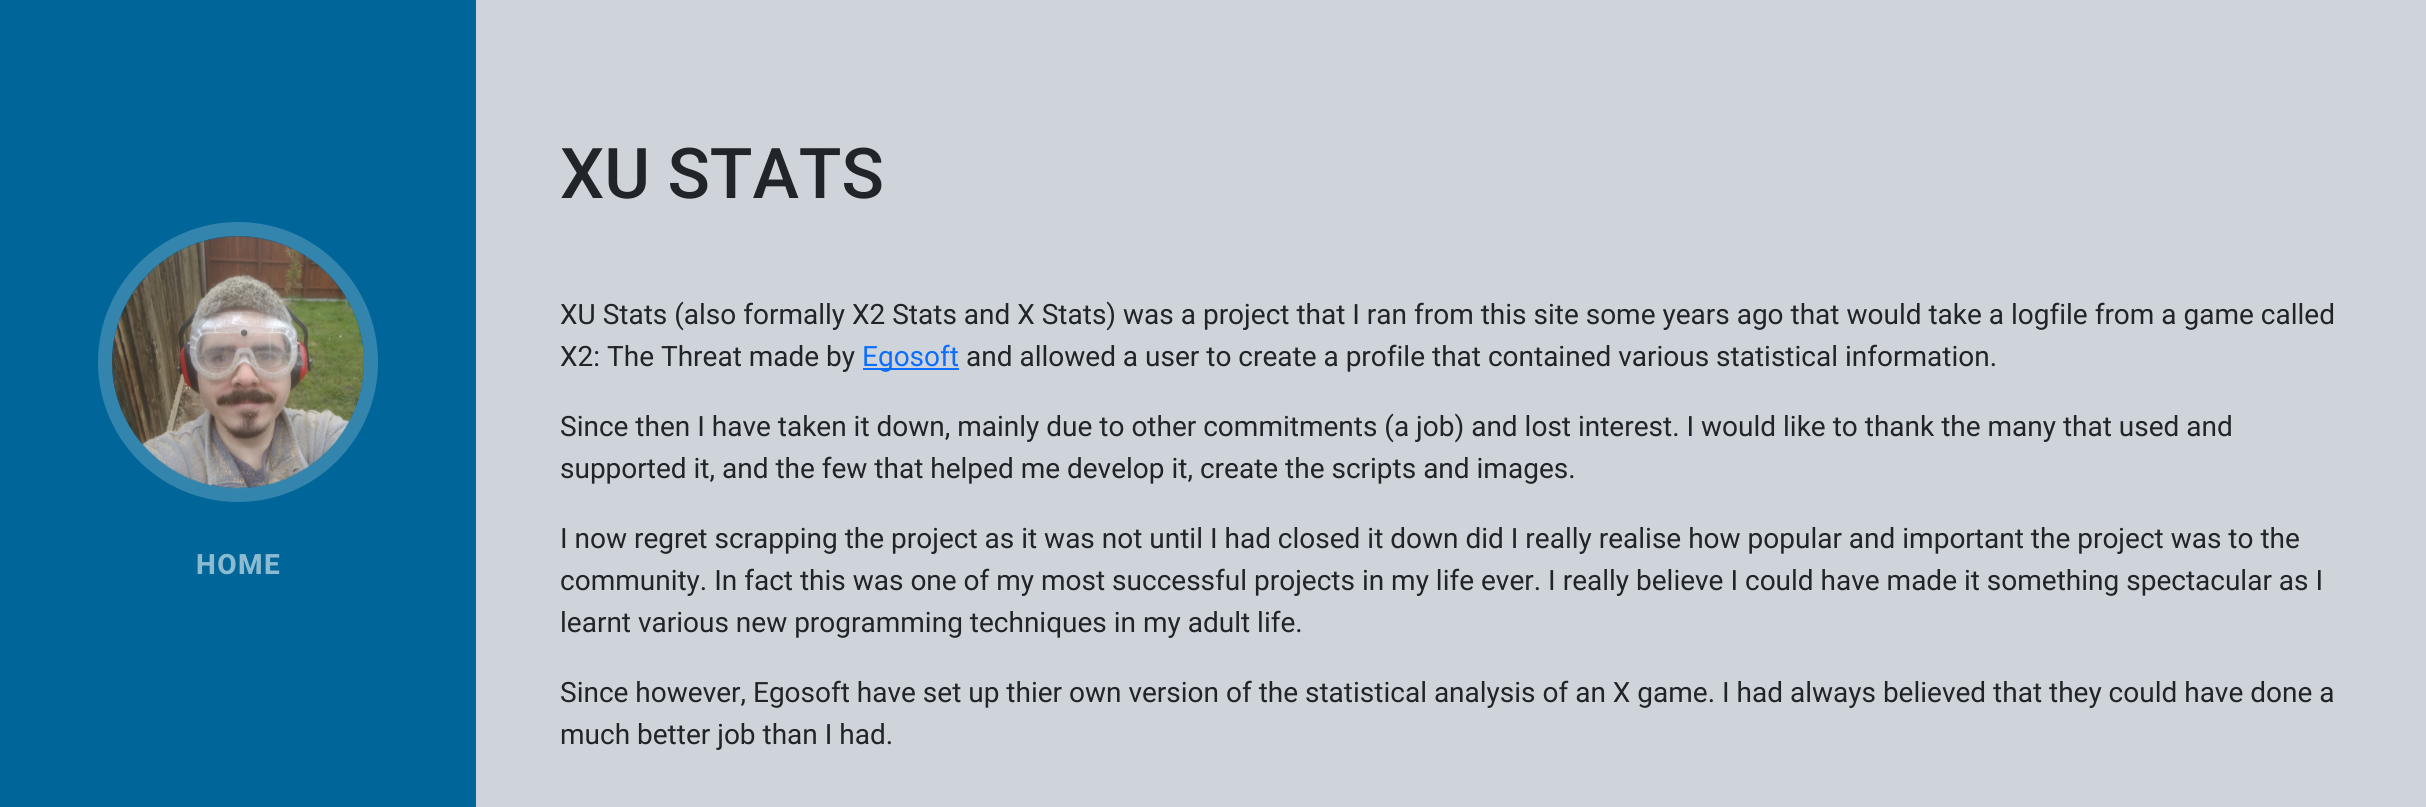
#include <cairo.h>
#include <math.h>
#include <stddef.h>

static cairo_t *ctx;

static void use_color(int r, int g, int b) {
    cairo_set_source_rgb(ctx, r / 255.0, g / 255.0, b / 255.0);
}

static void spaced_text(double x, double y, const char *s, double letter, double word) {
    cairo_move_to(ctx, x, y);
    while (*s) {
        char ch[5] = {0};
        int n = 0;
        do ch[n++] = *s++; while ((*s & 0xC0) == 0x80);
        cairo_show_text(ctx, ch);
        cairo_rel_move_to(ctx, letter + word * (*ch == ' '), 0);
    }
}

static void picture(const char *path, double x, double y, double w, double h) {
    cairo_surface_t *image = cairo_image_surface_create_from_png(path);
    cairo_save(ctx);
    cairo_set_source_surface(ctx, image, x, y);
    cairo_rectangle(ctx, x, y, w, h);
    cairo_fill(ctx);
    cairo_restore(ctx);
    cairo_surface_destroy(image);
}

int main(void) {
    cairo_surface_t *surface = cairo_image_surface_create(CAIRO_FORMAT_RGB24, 2426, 807);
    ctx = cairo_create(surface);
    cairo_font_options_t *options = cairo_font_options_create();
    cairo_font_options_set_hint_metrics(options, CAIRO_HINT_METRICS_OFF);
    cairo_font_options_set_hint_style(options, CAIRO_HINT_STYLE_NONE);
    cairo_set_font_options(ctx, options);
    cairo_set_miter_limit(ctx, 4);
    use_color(206, 212, 218);
    cairo_paint(ctx);
    use_color(0, 102, 153);
    cairo_rectangle(ctx, 0, 0, 476, 807);
    cairo_fill(ctx);
    cairo_arc(ctx, 238, 362, 133, 0, 2 * M_PI);
    use_color(51, 133, 173);
    cairo_set_line_width(ctx, 14);
    cairo_stroke(ctx);
    picture("img1.png", 112, 236, 252, 253);
    cairo_select_font_face(ctx, "Roboto ExtraBold", CAIRO_FONT_SLANT_NORMAL, CAIRO_FONT_WEIGHT_NORMAL);
    cairo_set_font_size(ctx, 28);
    use_color(140, 186, 209);
    spaced_text(196, 574, "HOME", 1.5, 0);
    cairo_select_font_face(ctx, "Roboto Medium", CAIRO_FONT_SLANT_NORMAL, CAIRO_FONT_WEIGHT_NORMAL);
    cairo_set_font_size(ctx, 70);
    use_color(33, 37, 41);
    cairo_move_to(ctx, 560, 198);
    cairo_show_text(ctx, "XU STATS");
    cairo_select_font_face(ctx, "Roboto", CAIRO_FONT_SLANT_NORMAL, CAIRO_FONT_WEIGHT_NORMAL);
    cairo_set_font_size(ctx, 28);
    cairo_move_to(ctx, 560, 324);
    cairo_show_text(ctx, "XU Stats (also formally X2 Stats and X Stats) was a project that I ran from this site some years ago that would take a logfile from a game called");
    cairo_move_to(ctx, 560, 366);
    cairo_show_text(ctx, "X2: The Threat made by");
    use_color(13, 110, 253);
    cairo_rectangle(ctx, 863, 368, 96, 2);
    cairo_fill(ctx);
    cairo_move_to(ctx, 862, 366);
    cairo_show_text(ctx, "Egosoft");
    use_color(33, 37, 41);
    cairo_move_to(ctx, 966, 366);
    cairo_show_text(ctx, "and allowed a user to create a profile that contained various statistical information.");
    cairo_move_to(ctx, 560, 436);
    cairo_show_text(ctx, "Since then I have taken it down, mainly due to other commitments (a job) and lost interest. I would like to thank the many that used and");
    cairo_move_to(ctx, 560, 478);
    cairo_show_text(ctx, "supported it, and the few that helped me develop it, create the scripts and images.");
    cairo_move_to(ctx, 560, 548);
    cairo_show_text(ctx, "I now regret scrapping the project as it was not until I had closed it down did I really realise how popular and important the project was to the");
    cairo_move_to(ctx, 560, 590);
    cairo_show_text(ctx, "community. In fact this was one of my most successful projects in my life ever. I really believe I could have made it something spectacular as I");
    cairo_move_to(ctx, 560, 632);
    cairo_show_text(ctx, "learnt various new programming techniques in my adult life.");
    cairo_move_to(ctx, 560, 702);
    cairo_show_text(ctx, "Since however, Egosoft have set up thier own version of the statistical analysis of an X game. I had always believed that they could have done a");
    cairo_move_to(ctx, 560, 744);
    cairo_show_text(ctx, "much better job than I had.");
    cairo_surface_write_to_png(surface, "result.png");
    cairo_font_options_destroy(options);
    cairo_destroy(ctx);
    cairo_surface_destroy(surface);
    return 0;
}
